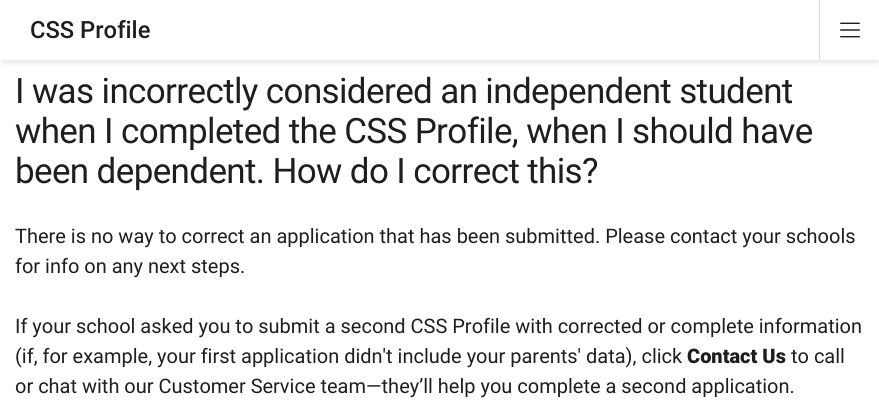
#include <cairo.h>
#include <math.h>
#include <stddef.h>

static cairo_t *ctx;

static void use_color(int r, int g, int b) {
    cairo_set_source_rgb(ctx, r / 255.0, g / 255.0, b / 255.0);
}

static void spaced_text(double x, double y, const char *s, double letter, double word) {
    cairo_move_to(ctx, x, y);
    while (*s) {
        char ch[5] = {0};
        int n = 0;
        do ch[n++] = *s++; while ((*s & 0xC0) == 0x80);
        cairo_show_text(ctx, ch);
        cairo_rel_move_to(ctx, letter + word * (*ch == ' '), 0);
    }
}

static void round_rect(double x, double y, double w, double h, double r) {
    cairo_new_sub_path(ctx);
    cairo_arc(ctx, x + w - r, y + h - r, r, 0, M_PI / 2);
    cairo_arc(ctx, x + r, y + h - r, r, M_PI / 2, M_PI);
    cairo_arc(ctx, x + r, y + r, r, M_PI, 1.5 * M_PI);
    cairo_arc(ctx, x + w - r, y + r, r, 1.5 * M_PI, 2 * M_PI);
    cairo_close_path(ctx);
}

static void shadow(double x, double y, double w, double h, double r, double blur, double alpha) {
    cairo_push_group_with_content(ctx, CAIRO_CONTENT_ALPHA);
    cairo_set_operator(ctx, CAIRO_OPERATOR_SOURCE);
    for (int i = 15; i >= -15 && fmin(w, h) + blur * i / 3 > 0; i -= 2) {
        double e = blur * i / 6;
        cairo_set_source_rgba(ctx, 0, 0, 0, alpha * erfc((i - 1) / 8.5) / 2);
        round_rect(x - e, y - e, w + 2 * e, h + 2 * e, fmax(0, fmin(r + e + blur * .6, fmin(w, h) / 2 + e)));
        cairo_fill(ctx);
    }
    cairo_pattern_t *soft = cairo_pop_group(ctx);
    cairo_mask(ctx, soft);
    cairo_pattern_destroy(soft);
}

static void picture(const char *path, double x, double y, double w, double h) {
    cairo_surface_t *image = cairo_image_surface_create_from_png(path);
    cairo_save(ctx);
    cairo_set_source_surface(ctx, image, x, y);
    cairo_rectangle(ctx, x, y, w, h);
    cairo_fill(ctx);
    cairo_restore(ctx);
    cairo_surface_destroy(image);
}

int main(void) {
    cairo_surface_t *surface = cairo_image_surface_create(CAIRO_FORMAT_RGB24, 879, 404);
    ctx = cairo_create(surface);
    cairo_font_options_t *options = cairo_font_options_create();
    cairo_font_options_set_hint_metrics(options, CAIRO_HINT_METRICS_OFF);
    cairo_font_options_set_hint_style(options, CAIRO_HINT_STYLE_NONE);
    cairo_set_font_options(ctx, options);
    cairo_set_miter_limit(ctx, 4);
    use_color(255, 255, 255);
    cairo_paint(ctx);
    use_color(0, 0, 0);
    shadow(3, 8, 875, 55, 0, 2.5, 0.1);
    use_color(255, 255, 255);
    cairo_rectangle(ctx, 0, 5, 879, 55);
    cairo_fill(ctx);
    cairo_select_font_face(ctx, "Roboto Medium", CAIRO_FONT_SLANT_NORMAL, CAIRO_FONT_WEIGHT_NORMAL);
    cairo_set_font_size(ctx, 23.75);
    use_color(30, 30, 30);
    cairo_move_to(ctx, 30, 38);
    cairo_show_text(ctx, "CSS Profile");
    use_color(217, 217, 217);
    cairo_rectangle(ctx, 819, 0, 1, 60);
    cairo_fill(ctx);
    picture("img1.png", 840, 22, 20, 16);
    cairo_select_font_face(ctx, "Roboto", CAIRO_FONT_SLANT_NORMAL, CAIRO_FONT_WEIGHT_NORMAL);
    cairo_set_font_size(ctx, 35);
    use_color(30, 30, 30);
    spaced_text(15, 103, "I was incorrectly considered an independent student", -0.62, 0);
    spaced_text(15, 143, "when I completed the CSS Profile, when I should have", -0.62, 0);
    spaced_text(15, 183, "been dependent. How do I correct this?", -0.62, 0);
    cairo_set_font_size(ctx, 20);
    cairo_move_to(ctx, 15, 243);
    cairo_show_text(ctx, "There is no way to correct an application that has been submitted. Please contact your schools");
    cairo_move_to(ctx, 15, 273);
    cairo_show_text(ctx, "for info on any next steps.");
    cairo_move_to(ctx, 15, 333);
    cairo_show_text(ctx, "If your school asked you to submit a second CSS Profile with corrected or complete information");
    cairo_move_to(ctx, 15, 363);
    cairo_show_text(ctx, "(if, for example, your first application didn't include your parents' data), click");
    cairo_select_font_face(ctx, "Roboto Black", CAIRO_FONT_SLANT_NORMAL, CAIRO_FONT_WEIGHT_NORMAL);
    cairo_move_to(ctx, 687, 363);
    cairo_show_text(ctx, "Contact Us");
    cairo_select_font_face(ctx, "Roboto", CAIRO_FONT_SLANT_NORMAL, CAIRO_FONT_WEIGHT_NORMAL);
    cairo_move_to(ctx, 791, 363);
    cairo_show_text(ctx, "to call");
    cairo_move_to(ctx, 15, 393);
    cairo_show_text(ctx, "or chat with our Customer Service team—they’ll help you complete a second application.");
    cairo_surface_write_to_png(surface, "result.png");
    cairo_font_options_destroy(options);
    cairo_destroy(ctx);
    cairo_surface_destroy(surface);
    return 0;
}
